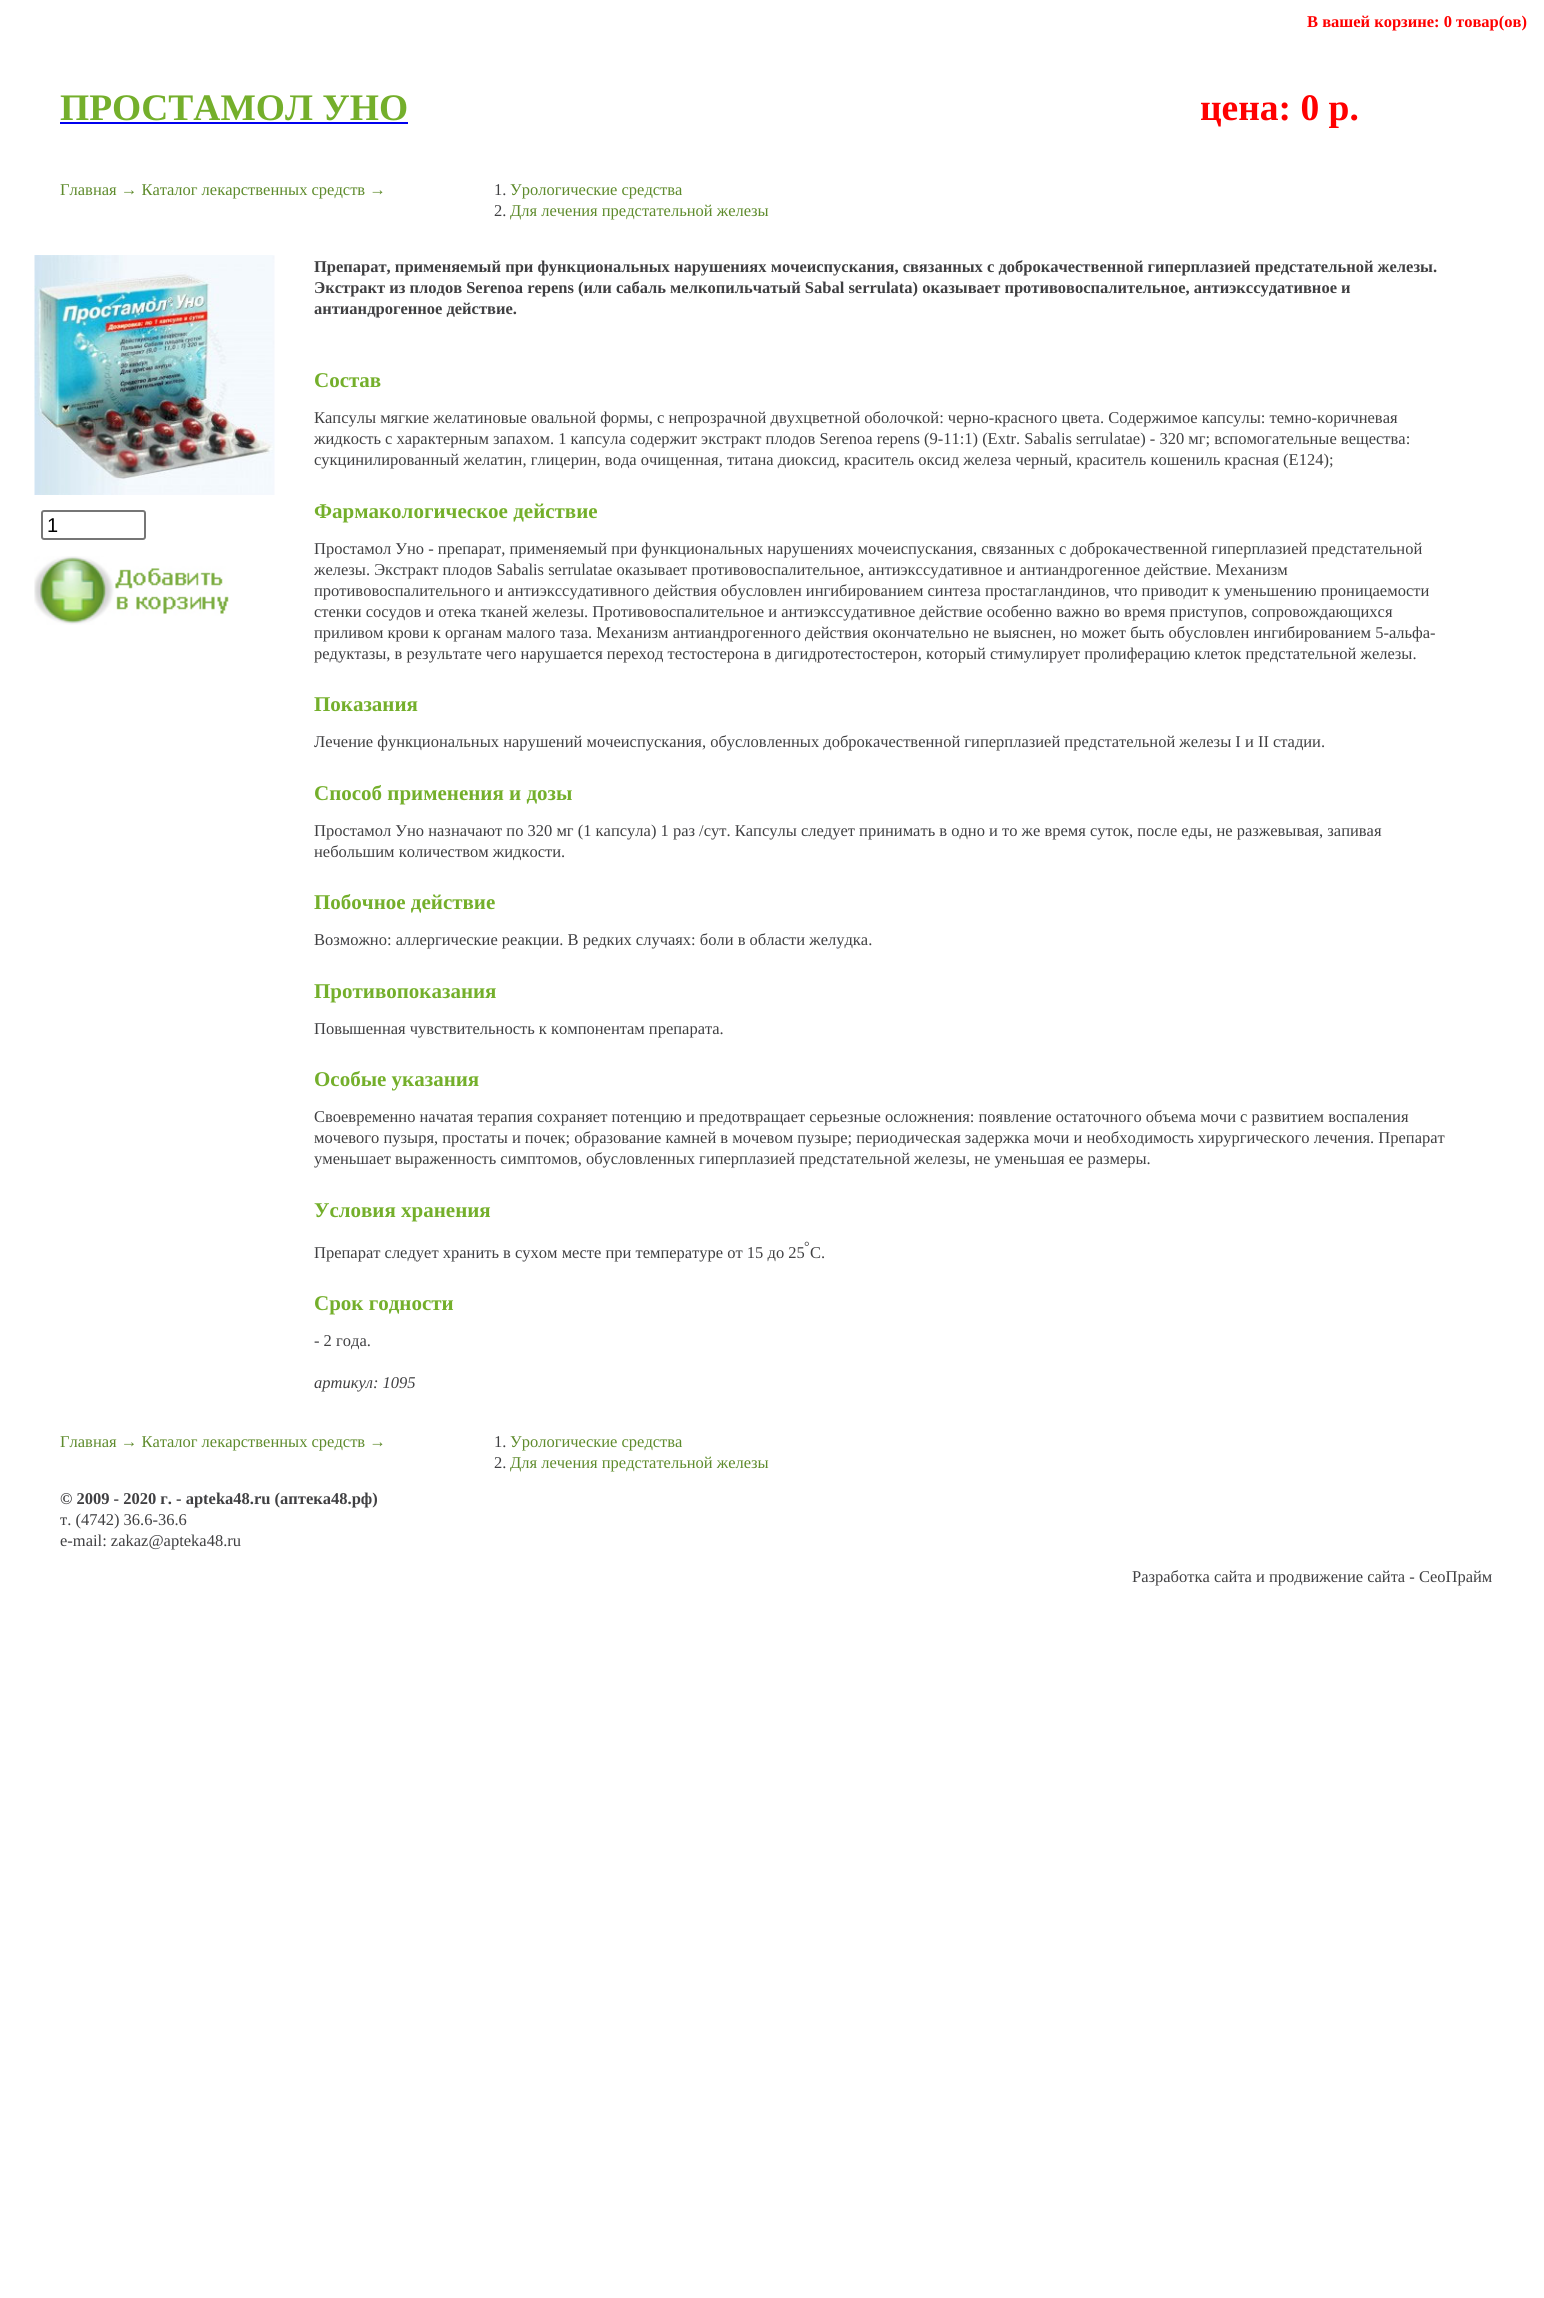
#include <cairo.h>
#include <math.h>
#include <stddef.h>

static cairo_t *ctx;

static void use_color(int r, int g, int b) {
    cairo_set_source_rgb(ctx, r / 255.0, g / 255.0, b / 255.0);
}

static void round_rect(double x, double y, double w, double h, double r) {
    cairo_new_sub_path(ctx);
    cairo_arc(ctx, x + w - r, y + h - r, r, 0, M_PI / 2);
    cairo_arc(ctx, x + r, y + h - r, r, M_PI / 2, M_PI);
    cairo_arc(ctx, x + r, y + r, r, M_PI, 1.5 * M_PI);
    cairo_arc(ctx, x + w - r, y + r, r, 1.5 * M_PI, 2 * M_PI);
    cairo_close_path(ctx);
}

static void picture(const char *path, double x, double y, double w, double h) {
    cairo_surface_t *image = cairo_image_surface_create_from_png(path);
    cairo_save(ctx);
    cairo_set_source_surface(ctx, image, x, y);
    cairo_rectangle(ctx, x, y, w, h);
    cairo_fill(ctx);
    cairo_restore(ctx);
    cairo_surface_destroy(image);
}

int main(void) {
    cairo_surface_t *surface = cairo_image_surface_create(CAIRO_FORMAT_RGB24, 1544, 2298);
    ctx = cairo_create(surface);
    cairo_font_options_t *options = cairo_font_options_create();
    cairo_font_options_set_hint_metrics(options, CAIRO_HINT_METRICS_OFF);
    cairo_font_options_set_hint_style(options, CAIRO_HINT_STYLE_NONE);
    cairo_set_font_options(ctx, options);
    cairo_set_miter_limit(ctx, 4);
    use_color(255, 255, 255);
    cairo_paint(ctx);
    cairo_select_font_face(ctx, "Liberation Serif", CAIRO_FONT_SLANT_NORMAL, CAIRO_FONT_WEIGHT_BOLD);
    cairo_set_font_size(ctx, 16.5);
    use_color(255, 0, 0);
    cairo_move_to(ctx, 1307, 27);
    cairo_show_text(ctx, "В вашей корзине: 0 товар(ов)");
    cairo_set_font_size(ctx, 37.5);
    use_color(116, 175, 43);
    cairo_move_to(ctx, 60, 120);
    cairo_show_text(ctx, "ПРОСТАМОЛ УНО");
    use_color(0, 0, 238);
    cairo_rectangle(ctx, 60, 122, 348, 2);
    cairo_fill(ctx);
    use_color(255, 0, 0);
    cairo_move_to(ctx, 1200, 120);
    cairo_show_text(ctx, "цена: 0 р.");
    cairo_select_font_face(ctx, "Liberation Serif", CAIRO_FONT_SLANT_NORMAL, CAIRO_FONT_WEIGHT_NORMAL);
    cairo_set_font_size(ctx, 16.5);
    use_color(94, 139, 44);
    cairo_move_to(ctx, 60, 195);
    cairo_show_text(ctx, "Главная → Каталог лекарственных средств →");
    use_color(64, 64, 66);
    cairo_move_to(ctx, 494, 195);
    cairo_show_text(ctx, "1.");
    use_color(94, 139, 44);
    cairo_move_to(ctx, 510, 195);
    cairo_show_text(ctx, "Урологические средства");
    use_color(64, 64, 66);
    cairo_move_to(ctx, 494, 216);
    cairo_show_text(ctx, "2.");
    use_color(94, 139, 44);
    cairo_move_to(ctx, 510, 216);
    cairo_show_text(ctx, "Для лечения предстательной железы");
    picture("img1.png", 34, 255, 241, 240);
    round_rect(42, 511, 103, 28, 2);
    use_color(118, 118, 118);
    cairo_stroke(ctx);
    cairo_select_font_face(ctx, "Liberation Sans", CAIRO_FONT_SLANT_NORMAL, CAIRO_FONT_WEIGHT_NORMAL);
    cairo_set_font_size(ctx, 20);
    use_color(0, 0, 0);
    cairo_move_to(ctx, 47, 532);
    cairo_show_text(ctx, "1");
    picture("img2.png", 34, 556, 195, 69);
    cairo_select_font_face(ctx, "Liberation Serif", CAIRO_FONT_SLANT_NORMAL, CAIRO_FONT_WEIGHT_BOLD);
    cairo_set_font_size(ctx, 16.5);
    use_color(64, 64, 66);
    cairo_move_to(ctx, 314, 272);
    cairo_show_text(ctx, "Препарат, применяемый при функциональных нарушениях мочеиспускания, связанных с доброкачественной гиперплазией предстательной железы.");
    cairo_move_to(ctx, 314, 293);
    cairo_show_text(ctx, "Экстракт из плодов Serenoa repens (или сабаль мелкопильчатый Sabal serrulata) оказывает противовоспалительное, антиэкссудативное и");
    cairo_move_to(ctx, 314, 314);
    cairo_show_text(ctx, "антиандрогенное действие.");
    cairo_set_font_size(ctx, 21);
    use_color(116, 175, 43);
    cairo_move_to(ctx, 314, 387);
    cairo_show_text(ctx, "Состав");
    cairo_select_font_face(ctx, "Liberation Serif", CAIRO_FONT_SLANT_NORMAL, CAIRO_FONT_WEIGHT_NORMAL);
    cairo_set_font_size(ctx, 16.5);
    use_color(64, 64, 66);
    cairo_move_to(ctx, 314, 423);
    cairo_show_text(ctx, "Капсулы мягкие желатиновые овальной формы, с непрозрачной двухцветной оболочкой: черно-красного цвета. Содержимое капсулы: темно-коричневая");
    cairo_move_to(ctx, 314, 444);
    cairo_show_text(ctx, "жидкость с характерным запахом. 1 капсула содержит экстракт плодов Serenoa repens (9-11:1) (Extr. Sabalis serrulatae) - 320 мг; вспомогательные вещества:");
    cairo_move_to(ctx, 314, 465);
    cairo_show_text(ctx, "сукцинилированный желатин, глицерин, вода очищенная, титана диоксид, краситель оксид железа черный, краситель кошениль красная (Е124);");
    cairo_select_font_face(ctx, "Liberation Serif", CAIRO_FONT_SLANT_NORMAL, CAIRO_FONT_WEIGHT_BOLD);
    cairo_set_font_size(ctx, 21);
    use_color(116, 175, 43);
    cairo_move_to(ctx, 314, 518);
    cairo_show_text(ctx, "Фармакологическое действие");
    cairo_select_font_face(ctx, "Liberation Serif", CAIRO_FONT_SLANT_NORMAL, CAIRO_FONT_WEIGHT_NORMAL);
    cairo_set_font_size(ctx, 16.5);
    use_color(64, 64, 66);
    cairo_move_to(ctx, 314, 554);
    cairo_show_text(ctx, "Простамол Уно - препарат, применяемый при функциональных нарушениях мочеиспускания, связанных с доброкачественной гиперплазией предстательной");
    cairo_move_to(ctx, 314, 575);
    cairo_show_text(ctx, "железы. Экстракт плодов Sabalis serrulatae оказывает противовоспалительное, антиэкссудативное и антиандрогенное действие. Механизм");
    cairo_move_to(ctx, 314, 596);
    cairo_show_text(ctx, "противовоспалительного и антиэкссудативного действия обусловлен ингибированием синтеза простагландинов, что приводит к уменьшению проницаемости");
    cairo_move_to(ctx, 314, 617);
    cairo_show_text(ctx, "стенки сосудов и отека тканей железы. Противовоспалительное и антиэкссудативное действие особенно важно во время приступов, сопровождающихся");
    cairo_move_to(ctx, 314, 638);
    cairo_show_text(ctx, "приливом крови к органам малого таза. Механизм антиандрогенного действия окончательно не выяснен, но может быть обусловлен ингибированием 5-альфа-");
    cairo_move_to(ctx, 314, 659);
    cairo_show_text(ctx, "редуктазы, в результате чего нарушается переход тестостерона в дигидротестостерон, который стимулирует пролиферацию клеток предстательной железы.");
    cairo_select_font_face(ctx, "Liberation Serif", CAIRO_FONT_SLANT_NORMAL, CAIRO_FONT_WEIGHT_BOLD);
    cairo_set_font_size(ctx, 21);
    use_color(116, 175, 43);
    cairo_move_to(ctx, 314, 711);
    cairo_show_text(ctx, "Показания");
    cairo_select_font_face(ctx, "Liberation Serif", CAIRO_FONT_SLANT_NORMAL, CAIRO_FONT_WEIGHT_NORMAL);
    cairo_set_font_size(ctx, 16.5);
    use_color(64, 64, 66);
    cairo_move_to(ctx, 314, 747);
    cairo_show_text(ctx, "Лечение функциональных нарушений мочеиспускания, обусловленных доброкачественной гиперплазией предстательной железы I и II стадии.");
    cairo_select_font_face(ctx, "Liberation Serif", CAIRO_FONT_SLANT_NORMAL, CAIRO_FONT_WEIGHT_BOLD);
    cairo_set_font_size(ctx, 21);
    use_color(116, 175, 43);
    cairo_move_to(ctx, 314, 800);
    cairo_show_text(ctx, "Способ применения и дозы");
    cairo_select_font_face(ctx, "Liberation Serif", CAIRO_FONT_SLANT_NORMAL, CAIRO_FONT_WEIGHT_NORMAL);
    cairo_set_font_size(ctx, 16.5);
    use_color(64, 64, 66);
    cairo_move_to(ctx, 314, 836);
    cairo_show_text(ctx, "Простамол Уно назначают по 320 мг (1 капсула) 1 раз /сут. Капсулы следует принимать в одно и то же время суток, после еды, не разжевывая, запивая");
    cairo_move_to(ctx, 314, 857);
    cairo_show_text(ctx, "небольшим количеством жидкости.");
    cairo_select_font_face(ctx, "Liberation Serif", CAIRO_FONT_SLANT_NORMAL, CAIRO_FONT_WEIGHT_BOLD);
    cairo_set_font_size(ctx, 21);
    use_color(116, 175, 43);
    cairo_move_to(ctx, 314, 909);
    cairo_show_text(ctx, "Побочное действие");
    cairo_select_font_face(ctx, "Liberation Serif", CAIRO_FONT_SLANT_NORMAL, CAIRO_FONT_WEIGHT_NORMAL);
    cairo_set_font_size(ctx, 16.5);
    use_color(64, 64, 66);
    cairo_move_to(ctx, 314, 945);
    cairo_show_text(ctx, "Возможно: аллергические реакции. В редких случаях: боли в области желудка.");
    cairo_select_font_face(ctx, "Liberation Serif", CAIRO_FONT_SLANT_NORMAL, CAIRO_FONT_WEIGHT_BOLD);
    cairo_set_font_size(ctx, 21);
    use_color(116, 175, 43);
    cairo_move_to(ctx, 314, 998);
    cairo_show_text(ctx, "Противопоказания");
    cairo_select_font_face(ctx, "Liberation Serif", CAIRO_FONT_SLANT_NORMAL, CAIRO_FONT_WEIGHT_NORMAL);
    cairo_set_font_size(ctx, 16.5);
    use_color(64, 64, 66);
    cairo_move_to(ctx, 314, 1034);
    cairo_show_text(ctx, "Повышенная чувствительность к компонентам препарата.");
    cairo_select_font_face(ctx, "Liberation Serif", CAIRO_FONT_SLANT_NORMAL, CAIRO_FONT_WEIGHT_BOLD);
    cairo_set_font_size(ctx, 21);
    use_color(116, 175, 43);
    cairo_move_to(ctx, 314, 1086);
    cairo_show_text(ctx, "Особые указания");
    cairo_select_font_face(ctx, "Liberation Serif", CAIRO_FONT_SLANT_NORMAL, CAIRO_FONT_WEIGHT_NORMAL);
    cairo_set_font_size(ctx, 16.5);
    use_color(64, 64, 66);
    cairo_move_to(ctx, 314, 1122);
    cairo_show_text(ctx, "Своевременно начатая терапия сохраняет потенцию и предотвращает серьезные осложнения: появление остаточного объема мочи с развитием воспаления");
    cairo_move_to(ctx, 314, 1143);
    cairo_show_text(ctx, "мочевого пузыря, простаты и почек; образование камней в мочевом пузыре; периодическая задержка мочи и необходимость хирургического лечения. Препарат");
    cairo_move_to(ctx, 314, 1164);
    cairo_show_text(ctx, "уменьшает выраженность симптомов, обусловленных гиперплазией предстательной железы, не уменьшая ее размеры.");
    cairo_select_font_face(ctx, "Liberation Serif", CAIRO_FONT_SLANT_NORMAL, CAIRO_FONT_WEIGHT_BOLD);
    cairo_set_font_size(ctx, 21);
    use_color(116, 175, 43);
    cairo_move_to(ctx, 314, 1217);
    cairo_show_text(ctx, "Условия хранения");
    cairo_select_font_face(ctx, "Liberation Serif", CAIRO_FONT_SLANT_NORMAL, CAIRO_FONT_WEIGHT_NORMAL);
    cairo_set_font_size(ctx, 14);
    use_color(64, 64, 66);
    cairo_move_to(ctx, 804, 1251);
    cairo_show_text(ctx, "°");
    cairo_set_font_size(ctx, 16.5);
    cairo_move_to(ctx, 314, 1258);
    cairo_show_text(ctx, "Препарат следует хранить в сухом месте при температуре от 15 до 25");
    cairo_move_to(ctx, 810, 1258);
    cairo_show_text(ctx, "С.");
    cairo_select_font_face(ctx, "Liberation Serif", CAIRO_FONT_SLANT_NORMAL, CAIRO_FONT_WEIGHT_BOLD);
    cairo_set_font_size(ctx, 21);
    use_color(116, 175, 43);
    cairo_move_to(ctx, 314, 1310);
    cairo_show_text(ctx, "Срок годности");
    cairo_select_font_face(ctx, "Liberation Serif", CAIRO_FONT_SLANT_NORMAL, CAIRO_FONT_WEIGHT_NORMAL);
    cairo_set_font_size(ctx, 16.5);
    use_color(64, 64, 66);
    cairo_move_to(ctx, 314, 1346);
    cairo_show_text(ctx, "- 2 года.");
    cairo_select_font_face(ctx, "Liberation Serif", CAIRO_FONT_SLANT_ITALIC, CAIRO_FONT_WEIGHT_NORMAL);
    cairo_move_to(ctx, 314, 1388);
    cairo_show_text(ctx, "артикул: 1095");
    cairo_select_font_face(ctx, "Liberation Serif", CAIRO_FONT_SLANT_NORMAL, CAIRO_FONT_WEIGHT_NORMAL);
    use_color(94, 139, 44);
    cairo_move_to(ctx, 60, 1447);
    cairo_show_text(ctx, "Главная → Каталог лекарственных средств →");
    use_color(64, 64, 66);
    cairo_move_to(ctx, 494, 1447);
    cairo_show_text(ctx, "1.");
    use_color(94, 139, 44);
    cairo_move_to(ctx, 510, 1447);
    cairo_show_text(ctx, "Урологические средства");
    use_color(64, 64, 66);
    cairo_move_to(ctx, 494, 1468);
    cairo_show_text(ctx, "2.");
    use_color(94, 139, 44);
    cairo_move_to(ctx, 510, 1468);
    cairo_show_text(ctx, "Для лечения предстательной железы");
    cairo_select_font_face(ctx, "Liberation Serif", CAIRO_FONT_SLANT_NORMAL, CAIRO_FONT_WEIGHT_BOLD);
    use_color(64, 64, 66);
    cairo_move_to(ctx, 60, 1504);
    cairo_show_text(ctx, "© 2009 - 2020 г. - apteka48.ru (аптека48.рф)");
    cairo_select_font_face(ctx, "Liberation Serif", CAIRO_FONT_SLANT_NORMAL, CAIRO_FONT_WEIGHT_NORMAL);
    cairo_move_to(ctx, 60, 1525);
    cairo_show_text(ctx, "т. (4742) 36.6-36.6");
    cairo_move_to(ctx, 60, 1546);
    cairo_show_text(ctx, "e-mail: zakaz@apteka48.ru");
    cairo_move_to(ctx, 1132, 1582);
    cairo_show_text(ctx, "Разработка сайта и продвижение сайта - СеоПрайм");
    cairo_surface_write_to_png(surface, "result.png");
    cairo_font_options_destroy(options);
    cairo_destroy(ctx);
    cairo_surface_destroy(surface);
    return 0;
}
